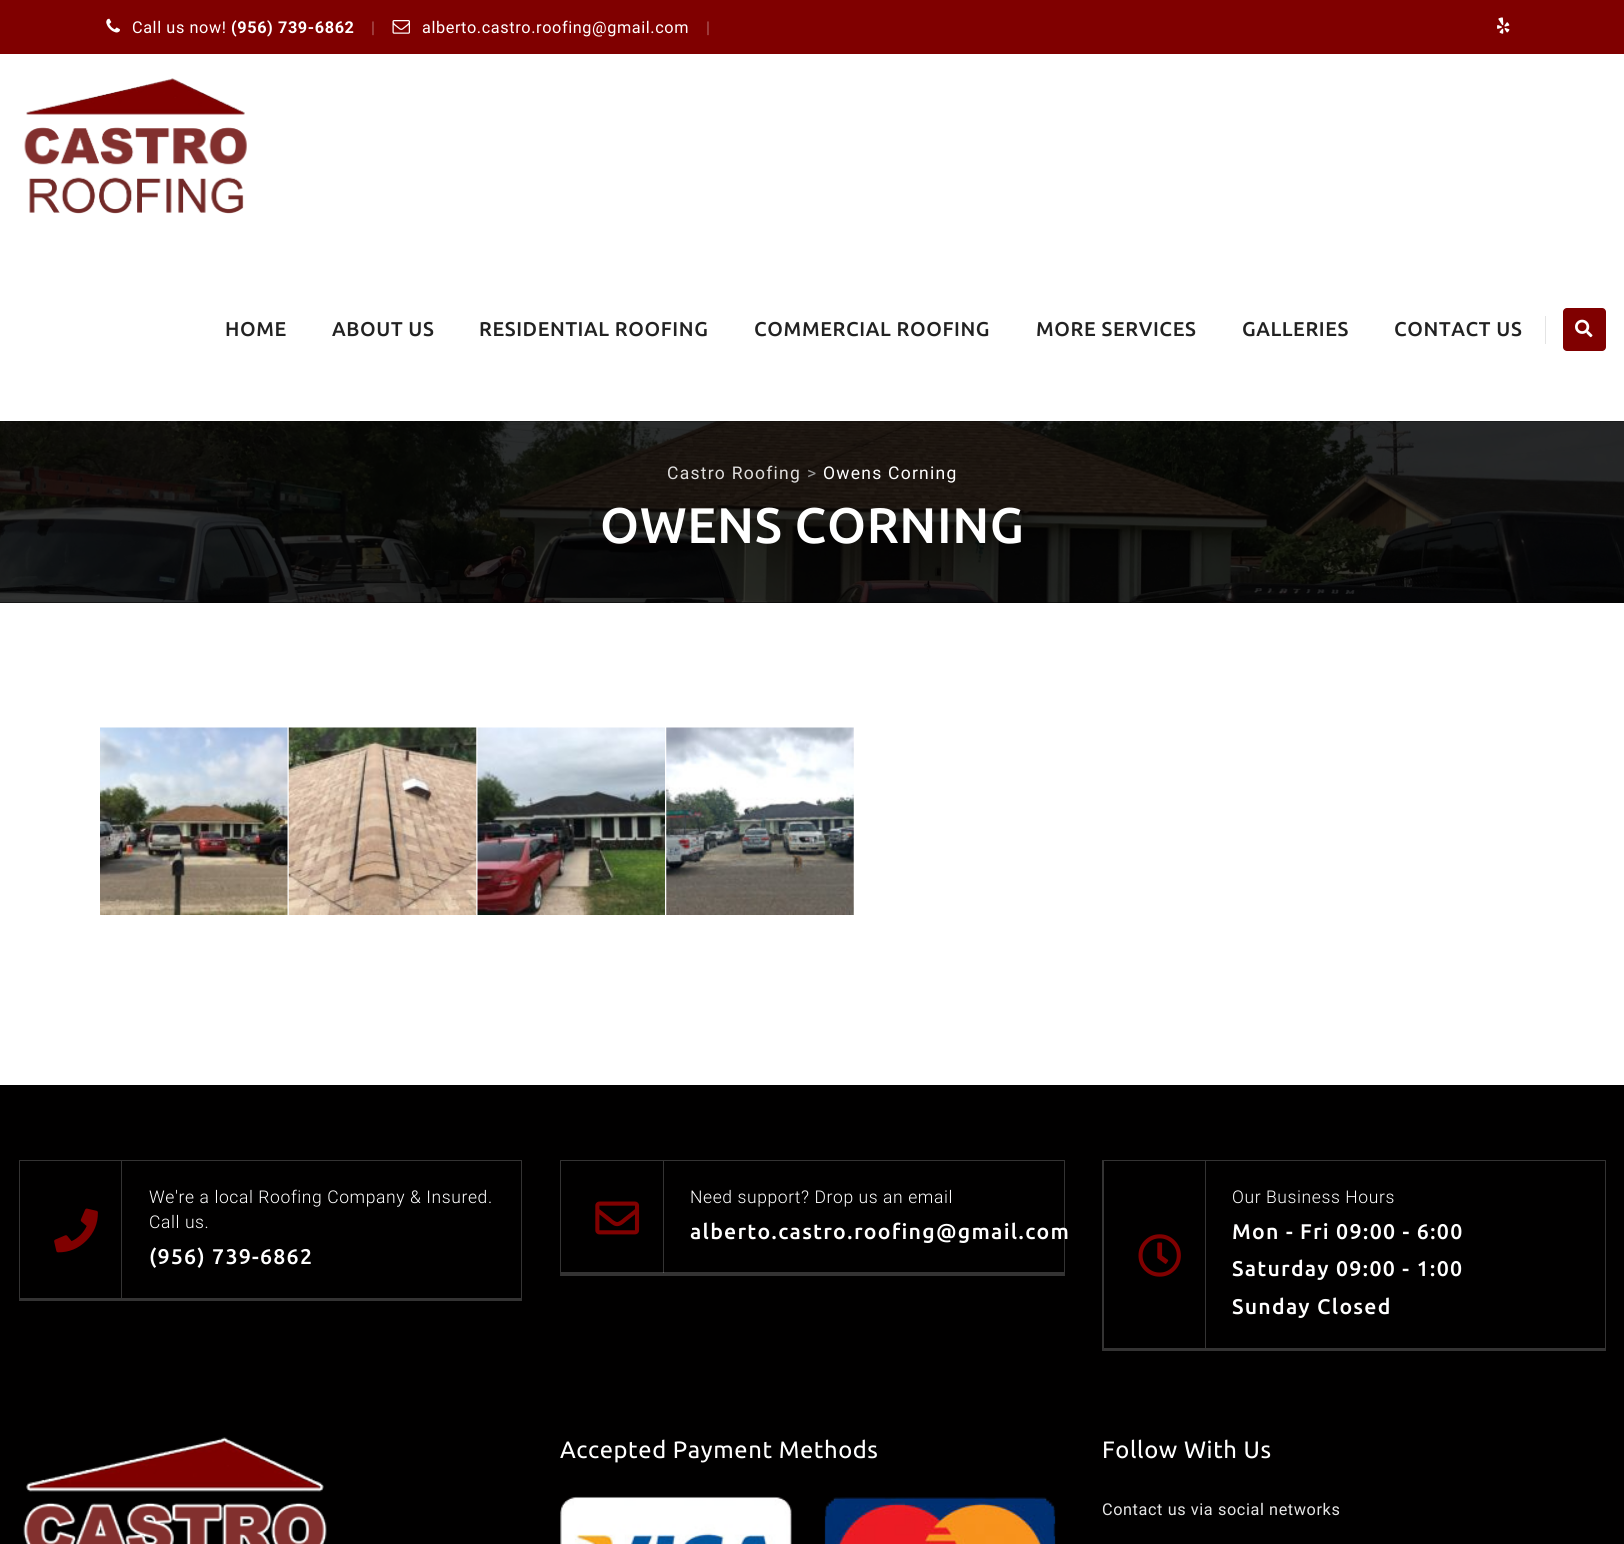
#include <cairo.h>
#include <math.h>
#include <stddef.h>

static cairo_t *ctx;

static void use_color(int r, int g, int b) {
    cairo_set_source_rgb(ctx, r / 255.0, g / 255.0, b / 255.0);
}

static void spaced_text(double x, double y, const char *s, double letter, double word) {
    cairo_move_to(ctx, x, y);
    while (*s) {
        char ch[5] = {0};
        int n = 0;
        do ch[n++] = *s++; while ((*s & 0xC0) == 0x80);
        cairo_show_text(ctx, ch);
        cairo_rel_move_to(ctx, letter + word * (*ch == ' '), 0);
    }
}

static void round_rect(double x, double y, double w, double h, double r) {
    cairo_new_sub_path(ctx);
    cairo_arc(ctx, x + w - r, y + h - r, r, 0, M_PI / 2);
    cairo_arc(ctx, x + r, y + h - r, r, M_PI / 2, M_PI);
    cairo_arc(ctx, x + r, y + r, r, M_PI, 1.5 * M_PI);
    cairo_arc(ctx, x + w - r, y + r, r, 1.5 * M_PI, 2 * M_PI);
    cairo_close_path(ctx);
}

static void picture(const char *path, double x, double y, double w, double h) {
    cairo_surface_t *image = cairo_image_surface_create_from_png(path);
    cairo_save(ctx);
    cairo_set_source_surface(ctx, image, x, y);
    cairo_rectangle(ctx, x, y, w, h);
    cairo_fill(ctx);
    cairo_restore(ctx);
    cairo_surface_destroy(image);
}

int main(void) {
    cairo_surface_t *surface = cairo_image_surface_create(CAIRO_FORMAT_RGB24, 1624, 1544);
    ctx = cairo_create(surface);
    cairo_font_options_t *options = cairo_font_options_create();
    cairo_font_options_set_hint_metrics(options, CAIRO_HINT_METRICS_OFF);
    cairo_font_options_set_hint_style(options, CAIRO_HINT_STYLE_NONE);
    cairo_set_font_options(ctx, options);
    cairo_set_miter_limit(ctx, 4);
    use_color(255, 255, 255);
    cairo_paint(ctx);
    use_color(128, 0, 0);
    cairo_rectangle(ctx, 0, 0, 1624, 54);
    cairo_fill(ctx);
    picture("img1.png", 106, 18, 14, 15);
    cairo_select_font_face(ctx, "Roboto", CAIRO_FONT_SLANT_NORMAL, CAIRO_FONT_WEIGHT_NORMAL);
    cairo_set_font_size(ctx, 16.25);
    use_color(255, 255, 255);
    spaced_text(132, 33, "Call us now!", 0.6, 0);
    cairo_select_font_face(ctx, "Roboto", CAIRO_FONT_SLANT_NORMAL, CAIRO_FONT_WEIGHT_BOLD);
    spaced_text(231, 33, "(956) 739-6862", 0.6, 0);
    cairo_select_font_face(ctx, "Roboto", CAIRO_FONT_SLANT_NORMAL, CAIRO_FONT_WEIGHT_NORMAL);
    use_color(176, 97, 97);
    spaced_text(371, 33, "|", 0.6, 0);
    picture("img2.png", 392, 20, 18, 14);
    use_color(255, 255, 255);
    spaced_text(422, 33, "alberto.castro.roofing@gmail.com", 0.6, 0);
    use_color(176, 97, 97);
    spaced_text(706, 33, "|", 0.6, 0);
    picture("img3.png", 1497, 17, 13, 17);
    picture("img4.png", 24, 78, 223, 136);
    cairo_select_font_face(ctx, "Ubuntu Medium", CAIRO_FONT_SLANT_NORMAL, CAIRO_FONT_WEIGHT_NORMAL);
    cairo_set_font_size(ctx, 20);
    use_color(34, 34, 34);
    spaced_text(225, 336, "HOME", 0.6, 0);
    spaced_text(332, 336, "ABOUT US", 0.6, 0);
    spaced_text(479, 336, "RESIDENTIAL ROOFING", 0.6, 0);
    spaced_text(754, 336, "COMMERCIAL ROOFING", 0.6, 0);
    spaced_text(1036, 336, "MORE SERVICES", 0.6, 0);
    spaced_text(1242, 336, "GALLERIES", 0.6, 0);
    spaced_text(1394, 336, "CONTACT US", 0.6, 0);
    use_color(228, 228, 228);
    cairo_rectangle(ctx, 1545, 316, 1, 28);
    cairo_fill(ctx);
    use_color(128, 0, 0);
    round_rect(1563, 308, 43, 43, 4);
    cairo_fill(ctx);
    picture("img5.png", 1575, 319, 18, 19);
    use_color(0, 0, 0);
    cairo_rectangle(ctx, 0, 421, 1624, 182);
    cairo_fill(ctx);
    picture("img6.png", 0, 421, 1624, 182);
    cairo_select_font_face(ctx, "Roboto", CAIRO_FONT_SLANT_NORMAL, CAIRO_FONT_WEIGHT_NORMAL);
    cairo_set_font_size(ctx, 17.5);
    use_color(223, 222, 221);
    spaced_text(667, 479, "Castro Roofing", 1.25, 0);
    use_color(153, 153, 153);
    spaced_text(807, 479, ">", 1.25, 0);
    use_color(255, 255, 255);
    spaced_text(823, 479, "Owens Corning", 1.25, 0);
    cairo_select_font_face(ctx, "Ubuntu Medium", CAIRO_FONT_SLANT_NORMAL, CAIRO_FONT_WEIGHT_NORMAL);
    cairo_set_font_size(ctx, 50);
    spaced_text(600, 543, "OWENS CORNING", 0.6, 0);
    picture("img7.png", 100, 727, 188, 188);
    picture("img8.png", 288, 727, 189, 188);
    picture("img9.png", 477, 727, 188, 188);
    picture("img10.png", 666, 727, 188, 188);
    use_color(1, 0, 0);
    cairo_rectangle(ctx, 0, 1085, 1624, 459);
    cairo_fill(ctx);
    use_color(52, 51, 51);
    cairo_new_path(ctx);
    cairo_move_to(ctx, 19, 1160);
    cairo_line_to(ctx, 522, 1160);
    cairo_line_to(ctx, 521, 1161);
    cairo_line_to(ctx, 20, 1161);
    cairo_close_path(ctx);
    cairo_fill(ctx);
    cairo_set_source_rgba(ctx, 1, 1, 1, 0.2);
    cairo_new_path(ctx);
    cairo_move_to(ctx, 522, 1160);
    cairo_line_to(ctx, 522, 1301);
    cairo_line_to(ctx, 521, 1298);
    cairo_line_to(ctx, 521, 1161);
    cairo_close_path(ctx);
    cairo_fill(ctx);
    cairo_new_path(ctx);
    cairo_move_to(ctx, 522, 1301);
    cairo_line_to(ctx, 19, 1301);
    cairo_line_to(ctx, 20, 1298);
    cairo_line_to(ctx, 521, 1298);
    cairo_close_path(ctx);
    cairo_fill(ctx);
    cairo_new_path(ctx);
    cairo_move_to(ctx, 19, 1301);
    cairo_line_to(ctx, 19, 1160);
    cairo_line_to(ctx, 20, 1161);
    cairo_line_to(ctx, 20, 1298);
    cairo_close_path(ctx);
    cairo_fill(ctx);
    use_color(52, 51, 51);
    cairo_rectangle(ctx, 121, 1161, 1, 137);
    cairo_fill(ctx);
    picture("img11.png", 54, 1208, 44, 45);
    cairo_select_font_face(ctx, "Roboto Light", CAIRO_FONT_SLANT_NORMAL, CAIRO_FONT_WEIGHT_NORMAL);
    cairo_set_font_size(ctx, 17.5);
    use_color(255, 255, 255);
    spaced_text(149, 1203, "We're a local Roofing Company & Insured.", 0.6, 0);
    spaced_text(149, 1228, "Call us.", 0.6, 0);
    cairo_select_font_face(ctx, "Ubuntu Medium", CAIRO_FONT_SLANT_NORMAL, CAIRO_FONT_WEIGHT_NORMAL);
    cairo_set_font_size(ctx, 21.25);
    spaced_text(149, 1264, "(956) 739-6862", 1.25, 0);
    use_color(52, 51, 51);
    cairo_new_path(ctx);
    cairo_move_to(ctx, 560, 1160);
    cairo_line_to(ctx, 1065, 1160);
    cairo_line_to(ctx, 1064, 1161);
    cairo_line_to(ctx, 561, 1161);
    cairo_close_path(ctx);
    cairo_fill(ctx);
    cairo_set_source_rgba(ctx, 1, 1, 1, 0.2);
    cairo_new_path(ctx);
    cairo_move_to(ctx, 1065, 1160);
    cairo_line_to(ctx, 1065, 1276);
    cairo_line_to(ctx, 1064, 1272);
    cairo_line_to(ctx, 1064, 1161);
    cairo_close_path(ctx);
    cairo_fill(ctx);
    cairo_new_path(ctx);
    cairo_move_to(ctx, 1065, 1276);
    cairo_line_to(ctx, 560, 1276);
    cairo_line_to(ctx, 561, 1272);
    cairo_line_to(ctx, 1064, 1272);
    cairo_close_path(ctx);
    cairo_fill(ctx);
    cairo_new_path(ctx);
    cairo_move_to(ctx, 560, 1276);
    cairo_line_to(ctx, 560, 1160);
    cairo_line_to(ctx, 561, 1161);
    cairo_line_to(ctx, 561, 1272);
    cairo_close_path(ctx);
    cairo_fill(ctx);
    cairo_rectangle(ctx, 663, 1161, 1, 112);
    cairo_fill(ctx);
    picture("img12.png", 595, 1201, 45, 34);
    cairo_select_font_face(ctx, "Roboto Light", CAIRO_FONT_SLANT_NORMAL, CAIRO_FONT_WEIGHT_NORMAL);
    cairo_set_font_size(ctx, 17.5);
    use_color(255, 255, 255);
    spaced_text(690, 1203, "Need support? Drop us an email", 0.6, 0);
    cairo_select_font_face(ctx, "Ubuntu Medium", CAIRO_FONT_SLANT_NORMAL, CAIRO_FONT_WEIGHT_NORMAL);
    cairo_set_font_size(ctx, 21.25);
    spaced_text(690, 1239, "alberto.castro.roofing@gmail.com", 1.25, 0);
    use_color(52, 51, 51);
    cairo_new_path(ctx);
    cairo_move_to(ctx, 1102, 1160);
    cairo_line_to(ctx, 1606, 1160);
    cairo_line_to(ctx, 1605, 1161);
    cairo_line_to(ctx, 1104, 1161);
    cairo_close_path(ctx);
    cairo_fill(ctx);
    cairo_set_source_rgba(ctx, 1, 1, 1, 0.2);
    cairo_new_path(ctx);
    cairo_move_to(ctx, 1606, 1160);
    cairo_line_to(ctx, 1606, 1351);
    cairo_line_to(ctx, 1605, 1348);
    cairo_line_to(ctx, 1605, 1161);
    cairo_close_path(ctx);
    cairo_fill(ctx);
    cairo_new_path(ctx);
    cairo_move_to(ctx, 1606, 1351);
    cairo_line_to(ctx, 1102, 1351);
    cairo_line_to(ctx, 1104, 1348);
    cairo_line_to(ctx, 1605, 1348);
    cairo_close_path(ctx);
    cairo_fill(ctx);
    cairo_new_path(ctx);
    cairo_move_to(ctx, 1102, 1351);
    cairo_line_to(ctx, 1102, 1160);
    cairo_line_to(ctx, 1104, 1161);
    cairo_line_to(ctx, 1104, 1348);
    cairo_close_path(ctx);
    cairo_fill(ctx);
    use_color(52, 51, 51);
    cairo_rectangle(ctx, 1205, 1161, 1, 187);
    cairo_fill(ctx);
    picture("img13.png", 1138, 1234, 43, 43);
    cairo_select_font_face(ctx, "Roboto Light", CAIRO_FONT_SLANT_NORMAL, CAIRO_FONT_WEIGHT_NORMAL);
    cairo_set_font_size(ctx, 17.5);
    use_color(255, 255, 255);
    spaced_text(1232, 1203, "Our Business Hours", 0.6, 0);
    cairo_select_font_face(ctx, "Ubuntu Medium", CAIRO_FONT_SLANT_NORMAL, CAIRO_FONT_WEIGHT_NORMAL);
    cairo_set_font_size(ctx, 21.25);
    spaced_text(1232, 1239, "Mon - Fri 09:00 - 6:00", 1.25, 0);
    spaced_text(1232, 1276, "Saturday 09:00 - 1:00", 1.25, 0);
    spaced_text(1232, 1314, "Sunday Closed", 1.25, 0);
    picture("img14.png", 23, 1437, 304, 107);
    cairo_select_font_face(ctx, "Ubuntu", CAIRO_FONT_SLANT_NORMAL, CAIRO_FONT_WEIGHT_NORMAL);
    cairo_set_font_size(ctx, 23.75);
    spaced_text(560, 1458, "Accepted Payment Methods", 0.6, 0);
    picture("img15.png", 560, 1496, 496, 48);
    spaced_text(1102, 1458, "Follow With Us", 0.6, 0);
    cairo_select_font_face(ctx, "Roboto", CAIRO_FONT_SLANT_NORMAL, CAIRO_FONT_WEIGHT_NORMAL);
    cairo_set_font_size(ctx, 16.25);
    use_color(230, 230, 230);
    spaced_text(1102, 1515, "Contact us via social networks", 0.6, 0);
    cairo_surface_write_to_png(surface, "result.png");
    cairo_font_options_destroy(options);
    cairo_destroy(ctx);
    cairo_surface_destroy(surface);
    return 0;
}
